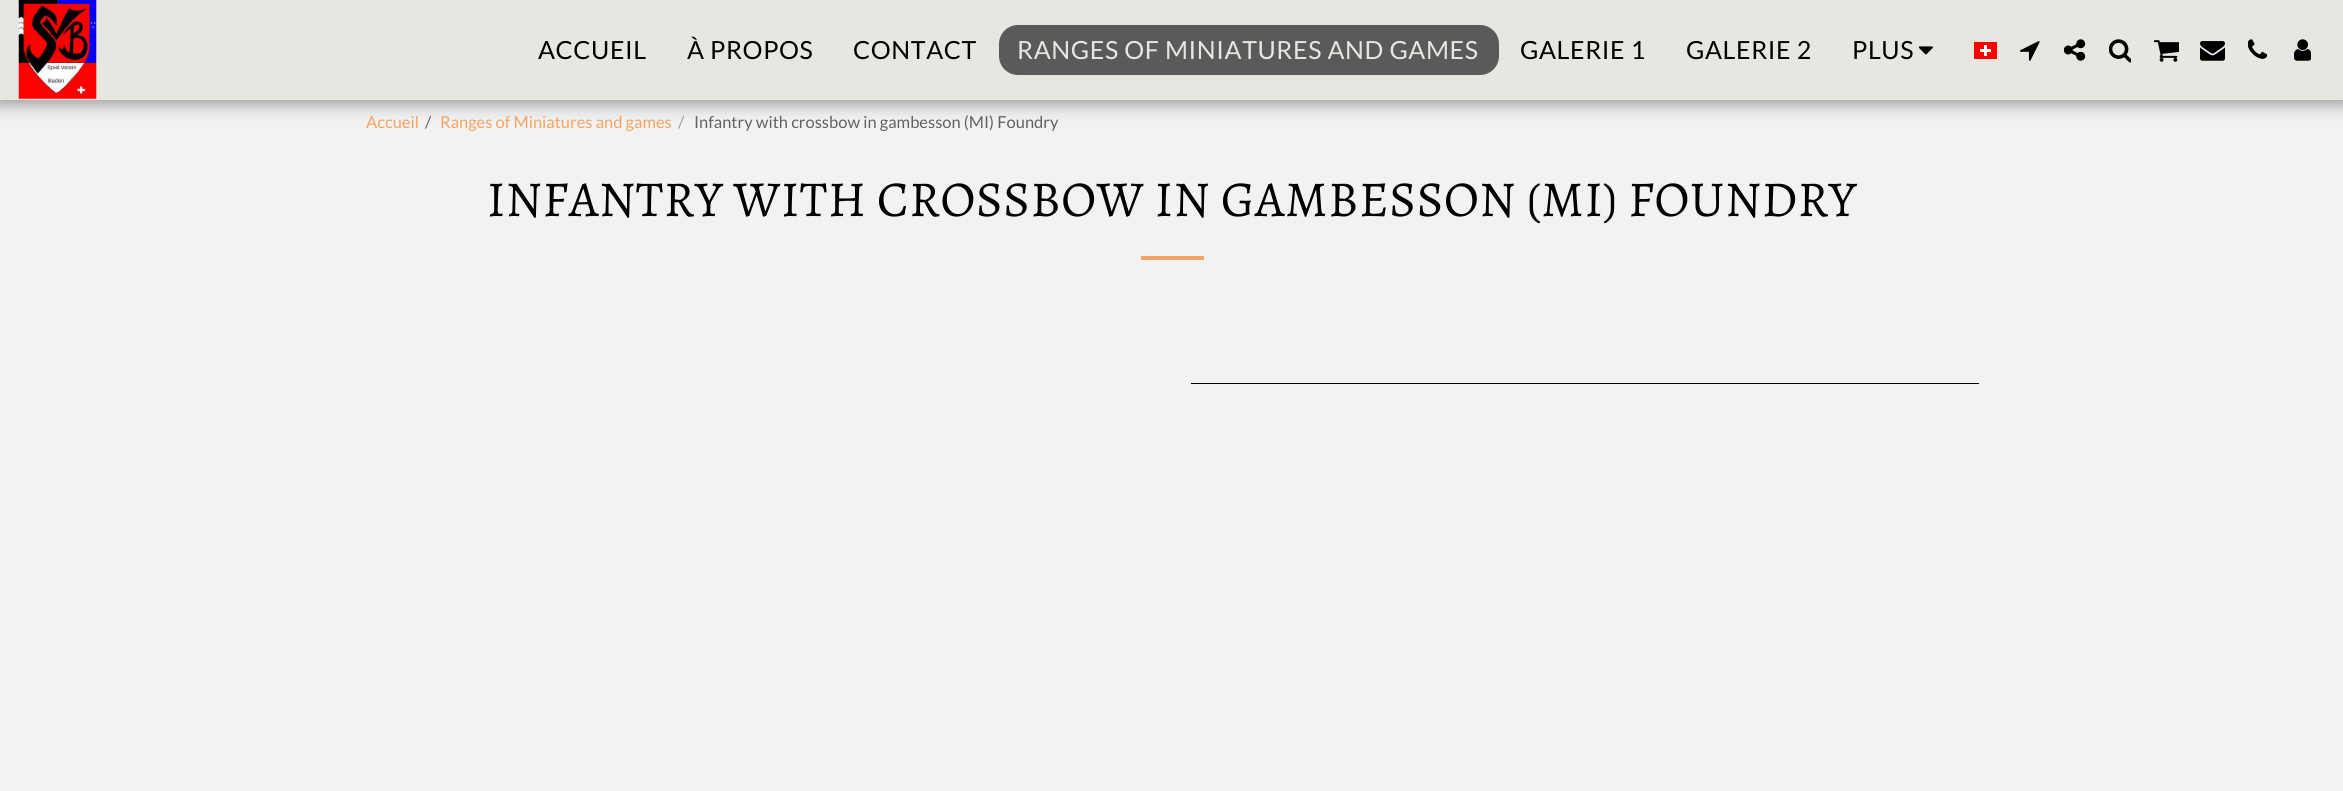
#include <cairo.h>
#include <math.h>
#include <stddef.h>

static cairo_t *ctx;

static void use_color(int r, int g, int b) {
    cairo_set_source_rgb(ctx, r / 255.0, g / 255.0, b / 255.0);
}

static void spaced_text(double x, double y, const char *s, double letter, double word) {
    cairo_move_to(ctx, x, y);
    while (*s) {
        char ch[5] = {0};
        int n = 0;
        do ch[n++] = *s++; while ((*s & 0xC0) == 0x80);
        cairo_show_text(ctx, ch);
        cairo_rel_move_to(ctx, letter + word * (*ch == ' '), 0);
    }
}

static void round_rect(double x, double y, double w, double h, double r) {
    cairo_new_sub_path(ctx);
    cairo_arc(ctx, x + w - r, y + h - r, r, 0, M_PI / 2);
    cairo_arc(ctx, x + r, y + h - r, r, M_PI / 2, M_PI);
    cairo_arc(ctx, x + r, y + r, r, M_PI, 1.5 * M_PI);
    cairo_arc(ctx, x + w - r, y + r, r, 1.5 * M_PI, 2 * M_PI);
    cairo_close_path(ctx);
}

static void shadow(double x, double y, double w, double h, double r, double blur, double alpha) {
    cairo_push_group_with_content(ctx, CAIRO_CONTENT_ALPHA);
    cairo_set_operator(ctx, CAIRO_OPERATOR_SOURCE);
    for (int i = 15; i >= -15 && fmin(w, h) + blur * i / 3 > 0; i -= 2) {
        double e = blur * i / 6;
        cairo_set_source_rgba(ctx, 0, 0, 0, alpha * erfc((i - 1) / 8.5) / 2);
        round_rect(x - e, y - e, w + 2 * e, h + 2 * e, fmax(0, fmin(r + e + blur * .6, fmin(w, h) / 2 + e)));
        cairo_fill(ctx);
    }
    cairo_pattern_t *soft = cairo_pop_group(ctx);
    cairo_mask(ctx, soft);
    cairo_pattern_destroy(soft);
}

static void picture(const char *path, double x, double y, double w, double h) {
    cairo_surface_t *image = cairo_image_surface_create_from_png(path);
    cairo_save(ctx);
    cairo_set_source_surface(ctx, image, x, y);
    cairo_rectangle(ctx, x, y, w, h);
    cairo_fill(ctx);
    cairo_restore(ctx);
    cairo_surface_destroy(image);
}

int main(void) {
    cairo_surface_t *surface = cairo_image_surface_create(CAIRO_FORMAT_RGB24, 2343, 791);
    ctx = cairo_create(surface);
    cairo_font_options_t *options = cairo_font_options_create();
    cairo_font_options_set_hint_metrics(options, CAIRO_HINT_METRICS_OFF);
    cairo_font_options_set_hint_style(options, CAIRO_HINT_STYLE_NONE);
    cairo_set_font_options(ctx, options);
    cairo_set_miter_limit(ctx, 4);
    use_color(242, 242, 242);
    cairo_paint(ctx);
    use_color(0, 0, 0);
    shadow(-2, 0, 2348, 105, 0, 7.5, 0.35);
    use_color(231, 230, 225);
    cairo_rectangle(ctx, 0, 0, 2343, 100);
    cairo_fill(ctx);
    picture("img1.png", 18, 0, 79, 99);
    cairo_select_font_face(ctx, "Lato", CAIRO_FONT_SLANT_NORMAL, CAIRO_FONT_WEIGHT_NORMAL);
    cairo_set_font_size(ctx, 25);
    use_color(0, 0, 0);
    spaced_text(538, 59, "ACCUEIL", 0.6, 0);
    spaced_text(687, 59, "À PROPOS", 0.6, 0);
    spaced_text(853, 59, "CONTACT", 0.6, 0);
    use_color(90, 90, 90);
    round_rect(999, 25, 500, 50, 19);
    cairo_fill(ctx);
    use_color(231, 230, 225);
    spaced_text(1017, 59, "RANGES OF MINIATURES AND GAMES", 0.6, 0);
    use_color(0, 0, 0);
    spaced_text(1520, 59, "GALERIE 1", 0.6, 0);
    spaced_text(1686, 59, "GALERIE 2", 0.6, 0);
    spaced_text(1852, 59, "PLUS", 0.6, 0);
    picture("img2.png", 1919, 46, 14, 9);
    use_color(255, 0, 0);
    cairo_rectangle(ctx, 1974, 42, 23, 17);
    cairo_fill(ctx);
    use_color(255, 255, 255);
    cairo_rectangle(ctx, 1980, 49, 11, 3);
    cairo_fill(ctx);
    cairo_rectangle(ctx, 1984, 45, 3, 11);
    cairo_fill(ctx);
    picture("img3.png", 2020, 41, 20, 20);
    picture("img4.png", 2064, 39, 22, 22);
    picture("img5.png", 2109, 39, 22, 24);
    picture("img6.png", 2154, 40, 25, 22);
    picture("img7.png", 2200, 41, 25, 20);
    picture("img8.png", 2248, 39, 20, 20);
    picture("img9.png", 2294, 39, 17, 22);
    cairo_set_font_size(ctx, 16.5);
    use_color(244, 164, 96);
    cairo_move_to(ctx, 366, 128);
    cairo_show_text(ctx, "Accueil");
    use_color(97, 97, 97);
    cairo_move_to(ctx, 425, 128);
    cairo_show_text(ctx, "/");
    use_color(244, 164, 96);
    cairo_move_to(ctx, 440, 128);
    cairo_show_text(ctx, "Ranges of Miniatures and games");
    use_color(155, 155, 155);
    cairo_move_to(ctx, 678, 128);
    cairo_show_text(ctx, "/");
    use_color(97, 97, 97);
    cairo_move_to(ctx, 694, 128);
    cairo_show_text(ctx, "Infantry with crossbow in gambesson (MI) Foundry");
    cairo_select_font_face(ctx, "Alegreya", CAIRO_FONT_SLANT_NORMAL, CAIRO_FONT_WEIGHT_NORMAL);
    cairo_set_font_size(ctx, 50.35);
    use_color(0, 0, 0);
    spaced_text(487, 216, "INFANTRY WITH CROSSBOW IN GAMBESSON (MI) FOUNDRY", 0.6, 0);
    use_color(244, 164, 96);
    cairo_rectangle(ctx, 1141, 256, 63, 4);
    cairo_fill(ctx);
    use_color(0, 0, 0);
    cairo_rectangle(ctx, 1191, 383, 788, 1);
    cairo_fill(ctx);
    cairo_surface_write_to_png(surface, "result.png");
    cairo_font_options_destroy(options);
    cairo_destroy(ctx);
    cairo_surface_destroy(surface);
    return 0;
}
